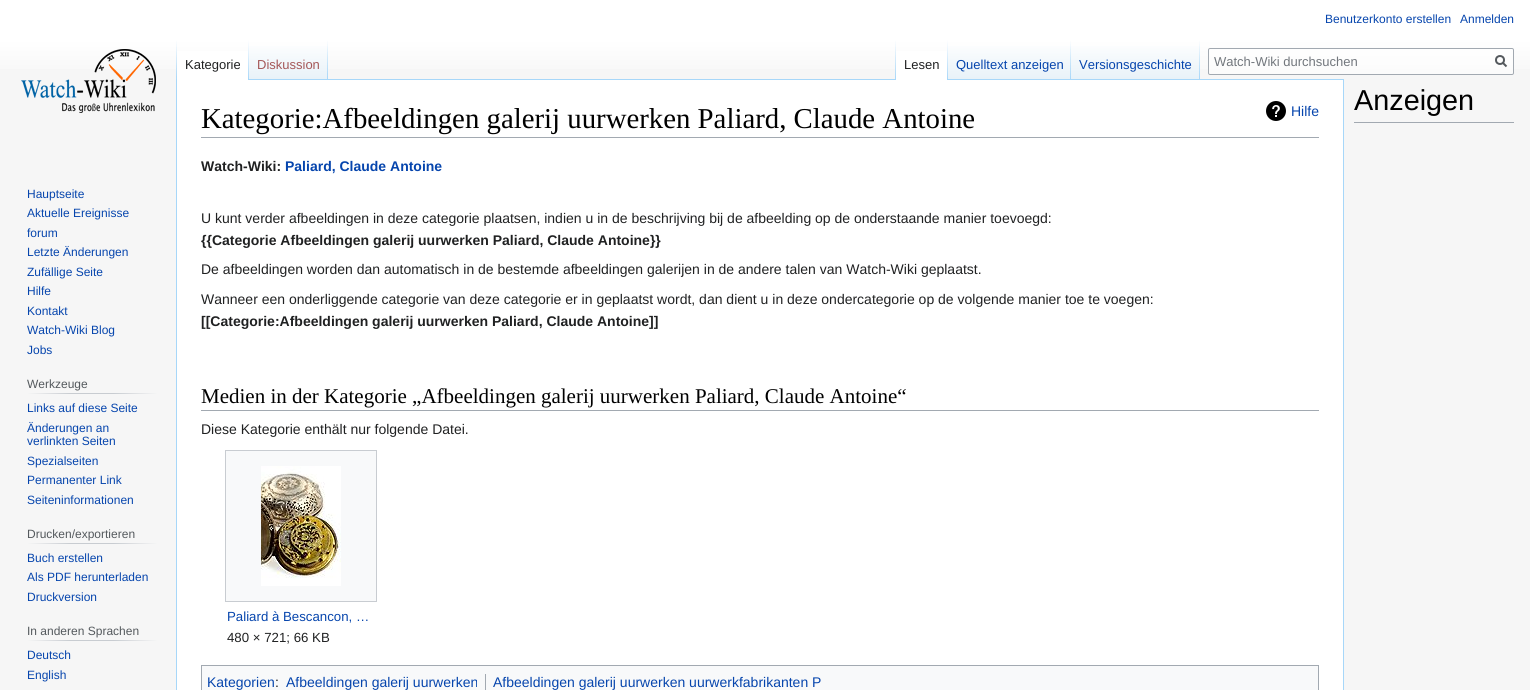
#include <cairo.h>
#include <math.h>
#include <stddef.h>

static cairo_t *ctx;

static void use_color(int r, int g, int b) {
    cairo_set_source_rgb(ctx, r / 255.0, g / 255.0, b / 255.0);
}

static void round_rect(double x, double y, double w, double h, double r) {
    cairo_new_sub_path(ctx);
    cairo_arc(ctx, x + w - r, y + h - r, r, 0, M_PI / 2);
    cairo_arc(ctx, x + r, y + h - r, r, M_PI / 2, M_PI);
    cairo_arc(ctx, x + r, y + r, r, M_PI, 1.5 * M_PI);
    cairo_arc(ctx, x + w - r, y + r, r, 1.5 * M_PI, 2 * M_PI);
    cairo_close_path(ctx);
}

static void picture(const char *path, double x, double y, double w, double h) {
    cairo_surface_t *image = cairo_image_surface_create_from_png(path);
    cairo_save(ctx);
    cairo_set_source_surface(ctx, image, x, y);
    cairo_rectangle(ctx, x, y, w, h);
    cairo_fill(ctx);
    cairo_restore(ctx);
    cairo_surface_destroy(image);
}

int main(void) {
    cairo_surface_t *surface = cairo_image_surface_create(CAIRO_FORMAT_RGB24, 1530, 690);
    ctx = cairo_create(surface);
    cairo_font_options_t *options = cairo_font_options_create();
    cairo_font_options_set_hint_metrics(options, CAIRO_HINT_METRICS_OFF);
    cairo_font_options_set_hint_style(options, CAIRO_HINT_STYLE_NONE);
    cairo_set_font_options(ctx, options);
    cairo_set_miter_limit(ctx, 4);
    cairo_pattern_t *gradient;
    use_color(246, 246, 246);
    cairo_paint(ctx);
    gradient = cairo_pattern_create_linear(765, 0, 765, 80);
    cairo_pattern_add_color_stop_rgba(gradient, 0.5, 1, 1, 1, 1);
    cairo_pattern_add_color_stop_rgba(gradient, 1, 0.965, 0.965, 0.965, 1);
    cairo_set_source(ctx, gradient);
    cairo_pattern_destroy(gradient);
    cairo_rectangle(ctx, 0, 0, 1530, 69);
    cairo_fill(ctx);
    cairo_select_font_face(ctx, "Liberation Sans", CAIRO_FONT_SLANT_NORMAL, CAIRO_FONT_WEIGHT_NORMAL);
    cairo_set_font_size(ctx, 12);
    use_color(6, 69, 173);
    cairo_move_to(ctx, 1325, 23);
    cairo_show_text(ctx, "Benutzerkonto erstellen");
    cairo_move_to(ctx, 1460, 23);
    cairo_show_text(ctx, "Anmelden");
    use_color(255, 255, 255);
    cairo_rectangle(ctx, 176.5, 79.5, 1167, 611);
    cairo_fill_preserve(ctx);
    use_color(167, 215, 249);
    cairo_set_line_width(ctx, 1);
    cairo_stroke(ctx);
    gradient = cairo_pattern_create_linear(177, 40, 177, 80);
    cairo_pattern_add_color_stop_rgba(gradient, 0, 0.655, 0.843, 0.976, 0);
    cairo_pattern_add_color_stop_rgba(gradient, 1, 0.655, 0.843, 0.976, 1);
    cairo_set_source(ctx, gradient);
    cairo_pattern_destroy(gradient);
    cairo_rectangle(ctx, 176, 40, 1, 40);
    cairo_fill(ctx);
    use_color(255, 255, 255);
    cairo_rectangle(ctx, 177, 51, 71, 29);
    cairo_fill(ctx);
    gradient = cairo_pattern_create_linear(249, 40, 249, 80);
    cairo_pattern_add_color_stop_rgba(gradient, 0, 1, 1, 1, 1);
    cairo_pattern_add_color_stop_rgba(gradient, 1, 0.655, 0.843, 0.976, 1);
    cairo_set_source(ctx, gradient);
    cairo_pattern_destroy(gradient);
    cairo_rectangle(ctx, 248, 40, 1, 40);
    cairo_fill(ctx);
    cairo_set_font_size(ctx, 13);
    use_color(32, 33, 34);
    cairo_move_to(ctx, 185, 69);
    cairo_show_text(ctx, "Kategorie");
    gradient = cairo_pattern_create_linear(289, 80, 289, 40);
    cairo_pattern_add_color_stop_rgba(gradient, 0, 0.467, 0.757, 0.965, 1);
    cairo_pattern_add_color_stop_rgba(gradient, 0.03, 0.91, 0.949, 0.973, 1);
    cairo_pattern_add_color_stop_rgba(gradient, 1, 1, 1, 1, 1);
    cairo_set_source(ctx, gradient);
    cairo_pattern_destroy(gradient);
    cairo_rectangle(ctx, 249, 46, 79, 33);
    cairo_fill(ctx);
    gradient = cairo_pattern_create_linear(328, 40, 328, 80);
    cairo_pattern_add_color_stop_rgba(gradient, 0, 0.655, 0.843, 0.976, 0);
    cairo_pattern_add_color_stop_rgba(gradient, 1, 0.655, 0.843, 0.976, 1);
    cairo_set_source(ctx, gradient);
    cairo_pattern_destroy(gradient);
    cairo_rectangle(ctx, 327, 40, 1, 40);
    cairo_fill(ctx);
    use_color(165, 88, 88);
    cairo_move_to(ctx, 257, 69);
    cairo_show_text(ctx, "Diskussion");
    gradient = cairo_pattern_create_linear(896, 40, 896, 80);
    cairo_pattern_add_color_stop_rgba(gradient, 0, 0.655, 0.843, 0.976, 0);
    cairo_pattern_add_color_stop_rgba(gradient, 1, 0.655, 0.843, 0.976, 1);
    cairo_set_source(ctx, gradient);
    cairo_pattern_destroy(gradient);
    cairo_rectangle(ctx, 895, 40, 1, 40);
    cairo_fill(ctx);
    use_color(255, 255, 255);
    cairo_rectangle(ctx, 896, 51, 51, 29);
    cairo_fill(ctx);
    gradient = cairo_pattern_create_linear(948, 40, 948, 80);
    cairo_pattern_add_color_stop_rgba(gradient, 0, 1, 1, 1, 1);
    cairo_pattern_add_color_stop_rgba(gradient, 1, 0.655, 0.843, 0.976, 1);
    cairo_set_source(ctx, gradient);
    cairo_pattern_destroy(gradient);
    cairo_rectangle(ctx, 947, 40, 1, 40);
    cairo_fill(ctx);
    use_color(32, 33, 34);
    cairo_move_to(ctx, 904, 69);
    cairo_show_text(ctx, "Lesen");
    gradient = cairo_pattern_create_linear(1010, 80, 1010, 40);
    cairo_pattern_add_color_stop_rgba(gradient, 0, 0.467, 0.757, 0.965, 1);
    cairo_pattern_add_color_stop_rgba(gradient, 0.03, 0.91, 0.949, 0.973, 1);
    cairo_pattern_add_color_stop_rgba(gradient, 1, 1, 1, 1, 1);
    cairo_set_source(ctx, gradient);
    cairo_pattern_destroy(gradient);
    cairo_rectangle(ctx, 948, 46, 123, 33);
    cairo_fill(ctx);
    gradient = cairo_pattern_create_linear(1071, 40, 1071, 80);
    cairo_pattern_add_color_stop_rgba(gradient, 0, 0.655, 0.843, 0.976, 0);
    cairo_pattern_add_color_stop_rgba(gradient, 1, 0.655, 0.843, 0.976, 1);
    cairo_set_source(ctx, gradient);
    cairo_pattern_destroy(gradient);
    cairo_rectangle(ctx, 1070, 40, 1, 40);
    cairo_fill(ctx);
    use_color(6, 69, 173);
    cairo_move_to(ctx, 956, 69);
    cairo_show_text(ctx, "Quelltext anzeigen");
    gradient = cairo_pattern_create_linear(1136, 80, 1136, 40);
    cairo_pattern_add_color_stop_rgba(gradient, 0, 0.467, 0.757, 0.965, 1);
    cairo_pattern_add_color_stop_rgba(gradient, 0.03, 0.91, 0.949, 0.973, 1);
    cairo_pattern_add_color_stop_rgba(gradient, 1, 1, 1, 1, 1);
    cairo_set_source(ctx, gradient);
    cairo_pattern_destroy(gradient);
    cairo_rectangle(ctx, 1071, 46, 129, 33);
    cairo_fill(ctx);
    gradient = cairo_pattern_create_linear(1200, 40, 1200, 80);
    cairo_pattern_add_color_stop_rgba(gradient, 0, 0.655, 0.843, 0.976, 0);
    cairo_pattern_add_color_stop_rgba(gradient, 1, 0.655, 0.843, 0.976, 1);
    cairo_set_source(ctx, gradient);
    cairo_pattern_destroy(gradient);
    cairo_rectangle(ctx, 1199, 40, 1, 40);
    cairo_fill(ctx);
    use_color(6, 69, 173);
    cairo_move_to(ctx, 1079, 69);
    cairo_show_text(ctx, "Versionsgeschichte");
    cairo_set_source_rgba(ctx, 1, 1, 1, 0.5);
    round_rect(1208.5, 48.5, 305, 26, 1.5);
    cairo_fill_preserve(ctx);
    use_color(162, 169, 177);
    cairo_stroke(ctx);
    use_color(114, 119, 125);
    cairo_move_to(ctx, 1214, 66);
    cairo_show_text(ctx, "Watch-Wiki durchsuchen");
    cairo_new_path(ctx);
    cairo_move_to(ctx, 1506.5, 66.5);
    cairo_line_to(ctx, 1502.5, 62.5);
    use_color(84, 89, 93);
    cairo_set_line_width(ctx, 2);
    cairo_stroke(ctx);
    cairo_arc(ctx, 1500, 60, 4, 0, 2 * M_PI);
    cairo_stroke(ctx);
    picture("img1.png", 21, 49, 135, 64);
    cairo_set_font_size(ctx, 12);
    use_color(6, 69, 173);
    cairo_move_to(ctx, 27, 198);
    cairo_show_text(ctx, "Hauptseite");
    cairo_move_to(ctx, 27, 217);
    cairo_show_text(ctx, "Aktuelle Ereignisse");
    cairo_move_to(ctx, 27, 237);
    cairo_show_text(ctx, "forum");
    cairo_move_to(ctx, 27, 256);
    cairo_show_text(ctx, "Letzte Änderungen");
    cairo_move_to(ctx, 27, 276);
    cairo_show_text(ctx, "Zufällige Seite");
    cairo_move_to(ctx, 27, 295);
    cairo_show_text(ctx, "Hilfe");
    cairo_move_to(ctx, 27, 315);
    cairo_show_text(ctx, "Kontakt");
    cairo_move_to(ctx, 27, 334);
    cairo_show_text(ctx, "Watch-Wiki Blog");
    cairo_move_to(ctx, 27, 354);
    cairo_show_text(ctx, "Jobs");
    gradient = cairo_pattern_create_linear(27, 394, 158, 394);
    cairo_pattern_add_color_stop_rgba(gradient, 0, 0.965, 0.965, 0.965, 1);
    cairo_pattern_add_color_stop_rgba(gradient, 0.33, 0.784, 0.8, 0.82, 1);
    cairo_pattern_add_color_stop_rgba(gradient, 0.66, 0.784, 0.8, 0.82, 1);
    cairo_pattern_add_color_stop_rgba(gradient, 1, 0.965, 0.965, 0.965, 1);
    cairo_set_source(ctx, gradient);
    cairo_pattern_destroy(gradient);
    cairo_rectangle(ctx, 27, 393, 131, 1);
    cairo_fill(ctx);
    use_color(84, 89, 93);
    cairo_move_to(ctx, 27, 388);
    cairo_show_text(ctx, "Werkzeuge");
    use_color(6, 69, 173);
    cairo_move_to(ctx, 27, 412);
    cairo_show_text(ctx, "Links auf diese Seite");
    cairo_move_to(ctx, 27, 432);
    cairo_show_text(ctx, "Änderungen an");
    cairo_move_to(ctx, 27, 445);
    cairo_show_text(ctx, "verlinkten Seiten");
    cairo_move_to(ctx, 27, 465);
    cairo_show_text(ctx, "Spezialseiten");
    cairo_move_to(ctx, 27, 484);
    cairo_show_text(ctx, "Permanenter Link");
    cairo_move_to(ctx, 27, 504);
    cairo_show_text(ctx, "Seiteninformationen");
    gradient = cairo_pattern_create_linear(27, 544, 158, 544);
    cairo_pattern_add_color_stop_rgba(gradient, 0, 0.965, 0.965, 0.965, 1);
    cairo_pattern_add_color_stop_rgba(gradient, 0.33, 0.784, 0.8, 0.82, 1);
    cairo_pattern_add_color_stop_rgba(gradient, 0.66, 0.784, 0.8, 0.82, 1);
    cairo_pattern_add_color_stop_rgba(gradient, 1, 0.965, 0.965, 0.965, 1);
    cairo_set_source(ctx, gradient);
    cairo_pattern_destroy(gradient);
    cairo_rectangle(ctx, 27, 543, 131, 1);
    cairo_fill(ctx);
    use_color(84, 89, 93);
    cairo_move_to(ctx, 27, 538);
    cairo_show_text(ctx, "Drucken/exportieren");
    use_color(6, 69, 173);
    cairo_move_to(ctx, 27, 562);
    cairo_show_text(ctx, "Buch erstellen");
    cairo_move_to(ctx, 27, 581);
    cairo_show_text(ctx, "Als PDF herunterladen");
    cairo_move_to(ctx, 27, 601);
    cairo_show_text(ctx, "Druckversion");
    gradient = cairo_pattern_create_linear(27, 641, 158, 641);
    cairo_pattern_add_color_stop_rgba(gradient, 0, 0.965, 0.965, 0.965, 1);
    cairo_pattern_add_color_stop_rgba(gradient, 0.33, 0.784, 0.8, 0.82, 1);
    cairo_pattern_add_color_stop_rgba(gradient, 0.66, 0.784, 0.8, 0.82, 1);
    cairo_pattern_add_color_stop_rgba(gradient, 1, 0.965, 0.965, 0.965, 1);
    cairo_set_source(ctx, gradient);
    cairo_pattern_destroy(gradient);
    cairo_rectangle(ctx, 27, 640, 131, 1);
    cairo_fill(ctx);
    use_color(84, 89, 93);
    cairo_move_to(ctx, 27, 635);
    cairo_show_text(ctx, "In anderen Sprachen");
    use_color(6, 69, 173);
    cairo_move_to(ctx, 27, 659);
    cairo_show_text(ctx, "Deutsch");
    cairo_move_to(ctx, 27, 679);
    cairo_show_text(ctx, "English");
    use_color(162, 169, 177);
    cairo_rectangle(ctx, 1354, 122, 160, 1);
    cairo_fill(ctx);
    cairo_set_font_size(ctx, 28.8);
    use_color(0, 0, 0);
    cairo_move_to(ctx, 1354, 110);
    cairo_show_text(ctx, "Anzeigen");
    use_color(162, 169, 177);
    cairo_rectangle(ctx, 201, 137, 1118, 1);
    cairo_fill(ctx);
    cairo_select_font_face(ctx, "Liberation Serif", CAIRO_FONT_SLANT_NORMAL, CAIRO_FONT_WEIGHT_NORMAL);
    use_color(0, 0, 0);
    cairo_move_to(ctx, 201, 128);
    cairo_show_text(ctx, "Kategorie:Afbeeldingen galerij uurwerken Paliard, Claude Antoine");
    picture("img2.png", 1266, 101, 20, 20);
    cairo_select_font_face(ctx, "Liberation Sans", CAIRO_FONT_SLANT_NORMAL, CAIRO_FONT_WEIGHT_NORMAL);
    cairo_set_font_size(ctx, 14);
    use_color(6, 69, 173);
    cairo_move_to(ctx, 1291, 116);
    cairo_show_text(ctx, "Hilfe");
    cairo_select_font_face(ctx, "Liberation Sans", CAIRO_FONT_SLANT_NORMAL, CAIRO_FONT_WEIGHT_BOLD);
    use_color(32, 33, 34);
    cairo_move_to(ctx, 201, 171);
    cairo_show_text(ctx, "Watch-Wiki:");
    use_color(6, 69, 173);
    cairo_move_to(ctx, 285, 171);
    cairo_show_text(ctx, "Paliard, Claude Antoine");
    cairo_select_font_face(ctx, "Liberation Sans", CAIRO_FONT_SLANT_NORMAL, CAIRO_FONT_WEIGHT_NORMAL);
    use_color(32, 33, 34);
    cairo_move_to(ctx, 201, 223);
    cairo_show_text(ctx, "U kunt verder afbeeldingen in deze categorie plaatsen, indien u in de beschrijving bij de afbeelding op de onderstaande manier toevoegd:");
    cairo_select_font_face(ctx, "Liberation Sans", CAIRO_FONT_SLANT_NORMAL, CAIRO_FONT_WEIGHT_BOLD);
    cairo_move_to(ctx, 201, 245);
    cairo_show_text(ctx, "{{Categorie Afbeeldingen galerij uurwerken Paliard, Claude Antoine}}");
    cairo_select_font_face(ctx, "Liberation Sans", CAIRO_FONT_SLANT_NORMAL, CAIRO_FONT_WEIGHT_NORMAL);
    cairo_move_to(ctx, 201, 274);
    cairo_show_text(ctx, "De afbeeldingen worden dan automatisch in de bestemde afbeeldingen galerijen in de andere talen van Watch-Wiki geplaatst.");
    cairo_move_to(ctx, 201, 304);
    cairo_show_text(ctx, "Wanneer een onderliggende categorie van deze categorie er in geplaatst wordt, dan dient u in deze ondercategorie op de volgende manier toe te voegen:");
    cairo_select_font_face(ctx, "Liberation Sans", CAIRO_FONT_SLANT_NORMAL, CAIRO_FONT_WEIGHT_BOLD);
    cairo_move_to(ctx, 201, 326);
    cairo_show_text(ctx, "[[Categorie:Afbeeldingen galerij uurwerken Paliard, Claude Antoine]]");
    use_color(162, 169, 177);
    cairo_rectangle(ctx, 201, 410, 1118, 1);
    cairo_fill(ctx);
    cairo_select_font_face(ctx, "Liberation Serif", CAIRO_FONT_SLANT_NORMAL, CAIRO_FONT_WEIGHT_NORMAL);
    cairo_set_font_size(ctx, 21);
    use_color(0, 0, 0);
    cairo_move_to(ctx, 201, 403);
    cairo_show_text(ctx, "Medien in der Kategorie „Afbeeldingen galerij uurwerken Paliard, Claude Antoine“");
    cairo_select_font_face(ctx, "Liberation Sans", CAIRO_FONT_SLANT_NORMAL, CAIRO_FONT_WEIGHT_NORMAL);
    cairo_set_font_size(ctx, 14);
    use_color(32, 33, 34);
    cairo_move_to(ctx, 201, 434);
    cairo_show_text(ctx, "Diese Kategorie enthält nur folgende Datei.");
    use_color(248, 249, 250);
    cairo_rectangle(ctx, 225.5, 450.5, 151, 151);
    cairo_fill_preserve(ctx);
    use_color(200, 204, 209);
    cairo_set_line_width(ctx, 1);
    cairo_stroke(ctx);
    picture("img3.png", 261, 466, 80, 120);
    cairo_set_font_size(ctx, 13.25);
    use_color(6, 69, 173);
    cairo_move_to(ctx, 227, 621);
    cairo_show_text(ctx, "Paliard à Bescancon, …");
    use_color(32, 33, 34);
    cairo_move_to(ctx, 227, 642);
    cairo_show_text(ctx, "480 × 721; 66 KB");
    use_color(248, 249, 250);
    cairo_rectangle(ctx, 201.5, 665.5, 1117, 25);
    cairo_fill_preserve(ctx);
    use_color(162, 169, 177);
    cairo_stroke(ctx);
    cairo_set_font_size(ctx, 14);
    use_color(6, 69, 173);
    cairo_move_to(ctx, 207, 687);
    cairo_show_text(ctx, "Kategorien");
    use_color(32, 33, 34);
    cairo_move_to(ctx, 275, 687);
    cairo_show_text(ctx, ":");
    use_color(6, 69, 173);
    cairo_move_to(ctx, 286, 687);
    cairo_show_text(ctx, "Afbeeldingen galerij uurwerken");
    use_color(162, 169, 177);
    cairo_rectangle(ctx, 485, 674, 1, 16);
    cairo_fill(ctx);
    use_color(6, 69, 173);
    cairo_move_to(ctx, 493, 687);
    cairo_show_text(ctx, "Afbeeldingen galerij uurwerken uurwerkfabrikanten P");
    cairo_surface_write_to_png(surface, "result.png");
    cairo_font_options_destroy(options);
    cairo_destroy(ctx);
    cairo_surface_destroy(surface);
    return 0;
}
